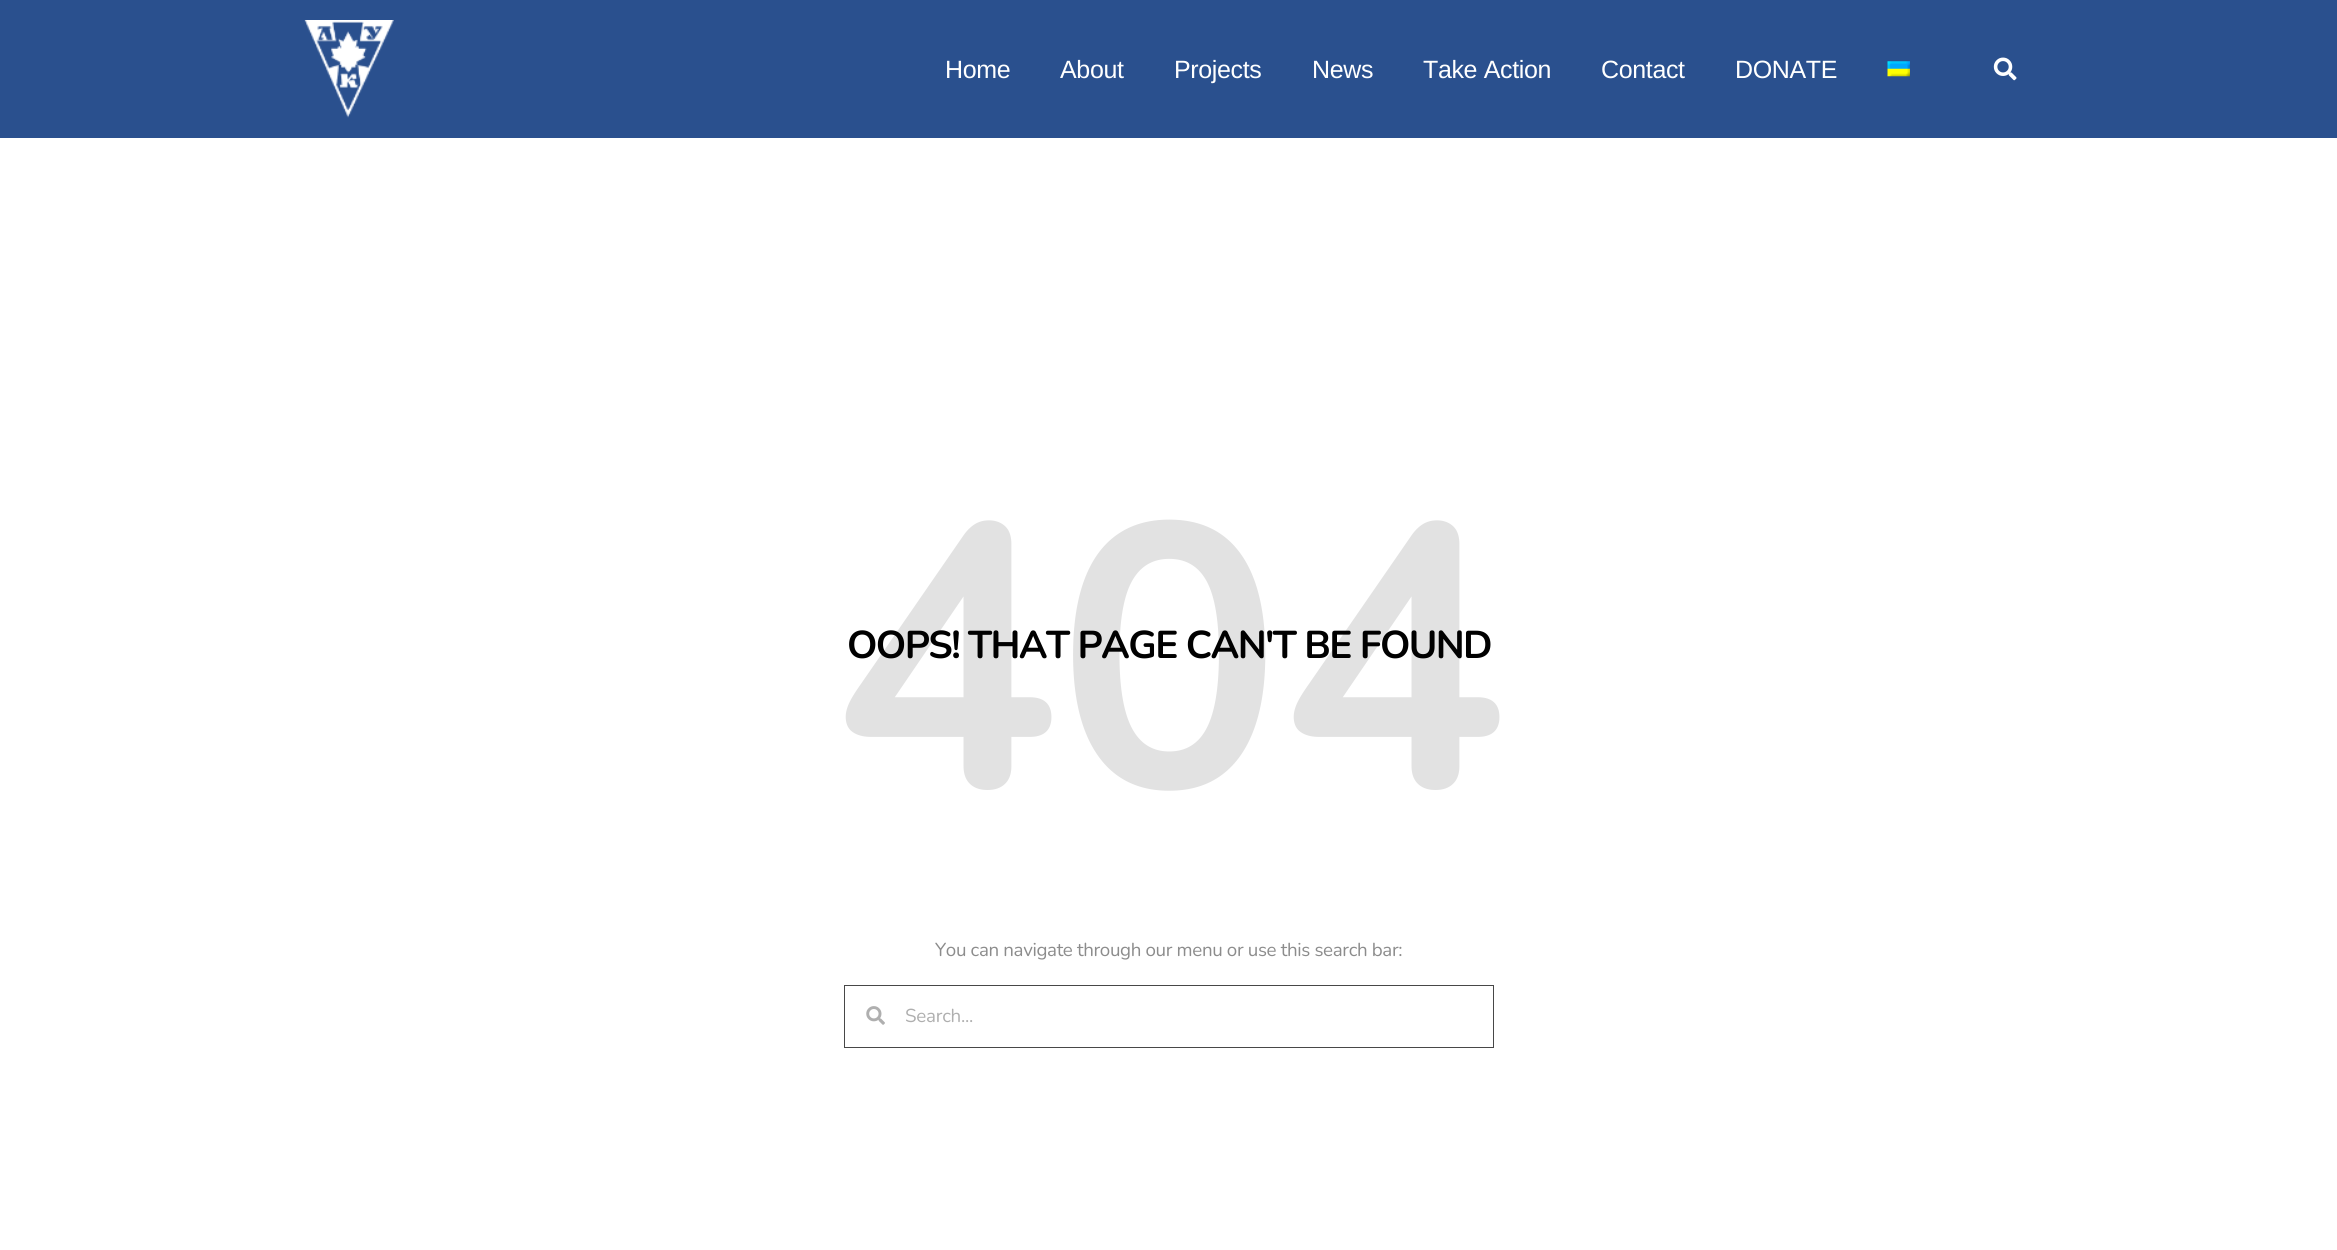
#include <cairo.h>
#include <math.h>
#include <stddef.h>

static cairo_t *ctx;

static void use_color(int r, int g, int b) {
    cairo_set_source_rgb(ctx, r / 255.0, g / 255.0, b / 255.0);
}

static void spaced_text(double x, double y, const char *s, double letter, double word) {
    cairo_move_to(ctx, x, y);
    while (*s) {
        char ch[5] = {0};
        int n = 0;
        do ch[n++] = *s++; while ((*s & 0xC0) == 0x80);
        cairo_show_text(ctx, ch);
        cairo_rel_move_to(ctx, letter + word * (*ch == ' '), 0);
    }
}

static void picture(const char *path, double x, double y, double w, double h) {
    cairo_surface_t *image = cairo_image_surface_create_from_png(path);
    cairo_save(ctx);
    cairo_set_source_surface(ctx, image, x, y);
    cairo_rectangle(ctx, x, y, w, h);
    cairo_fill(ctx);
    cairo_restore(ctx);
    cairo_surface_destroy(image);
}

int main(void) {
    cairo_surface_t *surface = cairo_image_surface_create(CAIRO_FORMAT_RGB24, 2337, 1250);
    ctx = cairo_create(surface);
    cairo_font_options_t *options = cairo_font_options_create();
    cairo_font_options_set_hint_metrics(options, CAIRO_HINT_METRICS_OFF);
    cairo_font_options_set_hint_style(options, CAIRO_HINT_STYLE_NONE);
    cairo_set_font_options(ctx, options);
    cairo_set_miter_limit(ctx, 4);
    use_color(255, 255, 255);
    cairo_paint(ctx);
    use_color(42, 80, 142);
    cairo_rectangle(ctx, 0, 0, 2337, 138);
    cairo_fill(ctx);
    picture("img1.png", 304, 20, 90, 98);
    cairo_select_font_face(ctx, "Liberation Sans", CAIRO_FONT_SLANT_NORMAL, CAIRO_FONT_WEIGHT_NORMAL);
    cairo_set_font_size(ctx, 25);
    use_color(255, 255, 255);
    spaced_text(945, 78, "Home", -0.35, 0);
    spaced_text(1060, 78, "About", -0.35, 0);
    spaced_text(1174, 78, "Projects", -0.35, 0);
    spaced_text(1312, 78, "News", -0.35, 0);
    spaced_text(1423, 78, "Take Action", -0.35, 0);
    spaced_text(1601, 78, "Contact", -0.35, 0);
    spaced_text(1735, 78, "DONATE", -0.35, 0);
    picture("img2.png", 1887, 61, 23, 16);
    picture("img3.png", 1993, 57, 24, 24);
    cairo_select_font_face(ctx, "Nunito", CAIRO_FONT_SLANT_NORMAL, CAIRO_FONT_WEIGHT_BOLD);
    cairo_set_font_size(ctx, 374);
    use_color(226, 226, 226);
    spaced_text(833, 787, "404", -0.35, 0);
    cairo_set_font_size(ctx, 38.75);
    use_color(0, 0, 0);
    spaced_text(847, 658, "OOPS! THAT PAGE CAN'T BE FOUND", -1.6, 0);
    cairo_select_font_face(ctx, "Nunito", CAIRO_FONT_SLANT_NORMAL, CAIRO_FONT_WEIGHT_NORMAL);
    cairo_set_font_size(ctx, 18.75);
    use_color(140, 140, 140);
    spaced_text(935, 956, "You can navigate through our menu or use this search bar:", -0.35, 0);
    cairo_rectangle(ctx, 844.5, 985.5, 649, 62);
    use_color(71, 71, 71);
    cairo_set_line_width(ctx, 1);
    cairo_stroke(ctx);
    picture("img4.png", 866, 1006, 19, 19);
    use_color(175, 175, 175);
    spaced_text(905, 1022, "Search...", -0.25, 0);
    cairo_surface_write_to_png(surface, "result.png");
    cairo_font_options_destroy(options);
    cairo_destroy(ctx);
    cairo_surface_destroy(surface);
    return 0;
}
